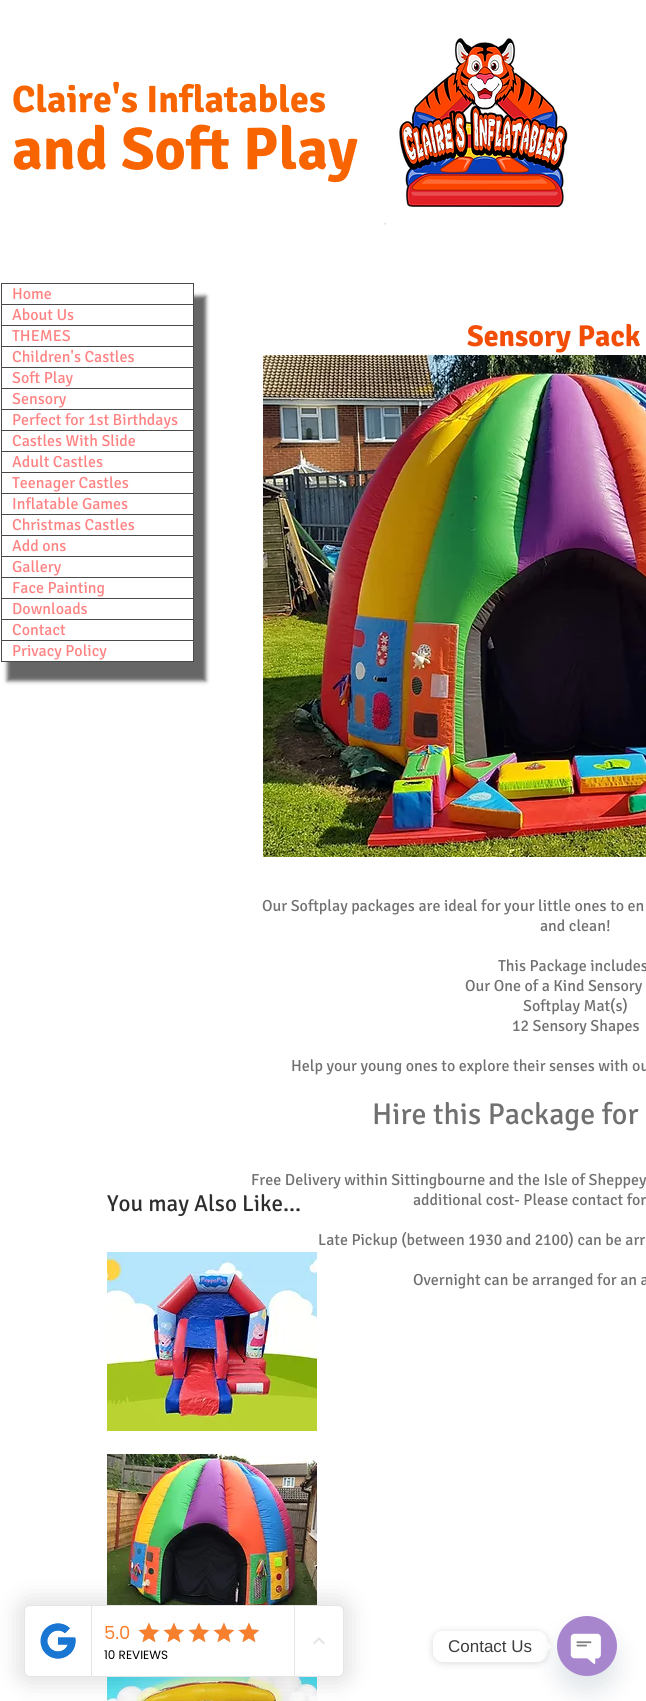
#include <cairo.h>
#include <math.h>
#include <stddef.h>

static cairo_t *ctx;

static void use_color(int r, int g, int b) {
    cairo_set_source_rgb(ctx, r / 255.0, g / 255.0, b / 255.0);
}

static void round_rect(double x, double y, double w, double h, double r) {
    cairo_new_sub_path(ctx);
    cairo_arc(ctx, x + w - r, y + h - r, r, 0, M_PI / 2);
    cairo_arc(ctx, x + r, y + h - r, r, M_PI / 2, M_PI);
    cairo_arc(ctx, x + r, y + r, r, M_PI, 1.5 * M_PI);
    cairo_arc(ctx, x + w - r, y + r, r, 1.5 * M_PI, 2 * M_PI);
    cairo_close_path(ctx);
}

static void shadow(double x, double y, double w, double h, double r, double blur, double alpha) {
    cairo_push_group_with_content(ctx, CAIRO_CONTENT_ALPHA);
    cairo_set_operator(ctx, CAIRO_OPERATOR_SOURCE);
    for (int i = 15; i >= -15 && fmin(w, h) + blur * i / 3 > 0; i -= 2) {
        double e = blur * i / 6;
        cairo_set_source_rgba(ctx, 0, 0, 0, alpha * erfc((i - 1) / 8.5) / 2);
        round_rect(x - e, y - e, w + 2 * e, h + 2 * e, fmax(0, fmin(r + e + blur * .6, fmin(w, h) / 2 + e)));
        cairo_fill(ctx);
    }
    cairo_pattern_t *soft = cairo_pop_group(ctx);
    cairo_mask(ctx, soft);
    cairo_pattern_destroy(soft);
}

static void picture(const char *path, double x, double y, double w, double h) {
    cairo_surface_t *image = cairo_image_surface_create_from_png(path);
    cairo_save(ctx);
    cairo_set_source_surface(ctx, image, x, y);
    cairo_rectangle(ctx, x, y, w, h);
    cairo_fill(ctx);
    cairo_restore(ctx);
    cairo_surface_destroy(image);
}

int main(void) {
    cairo_surface_t *surface = cairo_image_surface_create(CAIRO_FORMAT_RGB24, 646, 1701);
    ctx = cairo_create(surface);
    cairo_font_options_t *options = cairo_font_options_create();
    cairo_font_options_set_hint_metrics(options, CAIRO_HINT_METRICS_OFF);
    cairo_font_options_set_hint_style(options, CAIRO_HINT_STYLE_NONE);
    cairo_set_font_options(ctx, options);
    cairo_set_miter_limit(ctx, 4);
    use_color(255, 255, 255);
    cairo_paint(ctx);
    cairo_select_font_face(ctx, "Signika", CAIRO_FONT_SLANT_NORMAL, CAIRO_FONT_WEIGHT_BOLD);
    cairo_set_font_size(ctx, 38);
    use_color(248, 100, 0);
    cairo_move_to(ctx, 12, 112);
    cairo_show_text(ctx, "Claire's Inflatables");
    cairo_set_font_size(ctx, 60);
    cairo_move_to(ctx, 12, 169);
    cairo_show_text(ctx, "and Soft Play");
    picture("img1.png", 383, 38, 185, 187);
    cairo_save(ctx);
    cairo_set_fill_rule(ctx, CAIRO_FILL_RULE_EVEN_ODD);
    cairo_new_path(ctx);
    cairo_move_to(ctx, 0, 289);
    cairo_line_to(ctx, 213, 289);
    cairo_line_to(ctx, 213, 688);
    cairo_line_to(ctx, 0, 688);
    cairo_close_path(ctx);
    cairo_move_to(ctx, 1, 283);
    cairo_line_to(ctx, 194, 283);
    cairo_line_to(ctx, 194, 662);
    cairo_line_to(ctx, 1, 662);
    cairo_close_path(ctx);
    cairo_clip(ctx);
    use_color(0, 0, 0);
    shadow(7, 296, 199, 385, 0, 2, 0.6);
    cairo_restore(ctx);
    cairo_rectangle(ctx, 1.5, 283.5, 192, 378);
    use_color(74, 74, 74);
    cairo_set_line_width(ctx, 1);
    cairo_stroke(ctx);
    cairo_rectangle(ctx, 2, 304, 191, 1);
    cairo_fill(ctx);
    cairo_select_font_face(ctx, "Signika", CAIRO_FONT_SLANT_NORMAL, CAIRO_FONT_WEIGHT_NORMAL);
    cairo_set_font_size(ctx, 16);
    use_color(255, 130, 130);
    cairo_move_to(ctx, 12, 299);
    cairo_show_text(ctx, "Home");
    use_color(74, 74, 74);
    cairo_rectangle(ctx, 2, 325, 191, 1);
    cairo_fill(ctx);
    use_color(255, 130, 130);
    cairo_move_to(ctx, 12, 320);
    cairo_show_text(ctx, "About Us");
    use_color(74, 74, 74);
    cairo_rectangle(ctx, 2, 346, 191, 1);
    cairo_fill(ctx);
    use_color(255, 130, 130);
    cairo_move_to(ctx, 12, 341);
    cairo_show_text(ctx, "THEMES");
    use_color(74, 74, 74);
    cairo_rectangle(ctx, 2, 367, 191, 1);
    cairo_fill(ctx);
    use_color(255, 130, 130);
    cairo_move_to(ctx, 12, 362);
    cairo_show_text(ctx, "Children's Castles");
    use_color(74, 74, 74);
    cairo_rectangle(ctx, 2, 388, 191, 1);
    cairo_fill(ctx);
    use_color(255, 130, 130);
    cairo_move_to(ctx, 12, 383);
    cairo_show_text(ctx, "Soft Play");
    use_color(74, 74, 74);
    cairo_rectangle(ctx, 2, 409, 191, 1);
    cairo_fill(ctx);
    use_color(255, 130, 130);
    cairo_move_to(ctx, 12, 404);
    cairo_show_text(ctx, "Sensory");
    use_color(74, 74, 74);
    cairo_rectangle(ctx, 2, 430, 191, 1);
    cairo_fill(ctx);
    use_color(255, 130, 130);
    cairo_move_to(ctx, 12, 425);
    cairo_show_text(ctx, "Perfect for 1st Birthdays");
    use_color(74, 74, 74);
    cairo_rectangle(ctx, 2, 451, 191, 1);
    cairo_fill(ctx);
    use_color(255, 130, 130);
    cairo_move_to(ctx, 12, 446);
    cairo_show_text(ctx, "Castles With Slide");
    use_color(74, 74, 74);
    cairo_rectangle(ctx, 2, 472, 191, 1);
    cairo_fill(ctx);
    use_color(255, 130, 130);
    cairo_move_to(ctx, 12, 467);
    cairo_show_text(ctx, "Adult Castles");
    use_color(74, 74, 74);
    cairo_rectangle(ctx, 2, 493, 191, 1);
    cairo_fill(ctx);
    use_color(255, 130, 130);
    cairo_move_to(ctx, 12, 488);
    cairo_show_text(ctx, "Teenager Castles");
    use_color(74, 74, 74);
    cairo_rectangle(ctx, 2, 514, 191, 1);
    cairo_fill(ctx);
    use_color(255, 130, 130);
    cairo_move_to(ctx, 12, 509);
    cairo_show_text(ctx, "Inflatable Games");
    use_color(74, 74, 74);
    cairo_rectangle(ctx, 2, 535, 191, 1);
    cairo_fill(ctx);
    use_color(255, 130, 130);
    cairo_move_to(ctx, 12, 530);
    cairo_show_text(ctx, "Christmas Castles");
    use_color(74, 74, 74);
    cairo_rectangle(ctx, 2, 556, 191, 1);
    cairo_fill(ctx);
    use_color(255, 130, 130);
    cairo_move_to(ctx, 12, 551);
    cairo_show_text(ctx, "Add ons");
    use_color(74, 74, 74);
    cairo_rectangle(ctx, 2, 577, 191, 1);
    cairo_fill(ctx);
    use_color(255, 130, 130);
    cairo_move_to(ctx, 12, 572);
    cairo_show_text(ctx, "Gallery");
    use_color(74, 74, 74);
    cairo_rectangle(ctx, 2, 598, 191, 1);
    cairo_fill(ctx);
    use_color(255, 130, 130);
    cairo_move_to(ctx, 12, 593);
    cairo_show_text(ctx, "Face Painting");
    use_color(74, 74, 74);
    cairo_rectangle(ctx, 2, 619, 191, 1);
    cairo_fill(ctx);
    use_color(255, 130, 130);
    cairo_move_to(ctx, 12, 614);
    cairo_show_text(ctx, "Downloads");
    use_color(74, 74, 74);
    cairo_rectangle(ctx, 2, 640, 191, 1);
    cairo_fill(ctx);
    use_color(255, 130, 130);
    cairo_move_to(ctx, 12, 635);
    cairo_show_text(ctx, "Contact");
    cairo_move_to(ctx, 12, 656);
    cairo_show_text(ctx, "Privacy Policy");
    cairo_select_font_face(ctx, "Signika", CAIRO_FONT_SLANT_NORMAL, CAIRO_FONT_WEIGHT_BOLD);
    cairo_set_font_size(ctx, 30);
    use_color(242, 78, 7);
    cairo_move_to(ctx, 467, 346);
    cairo_show_text(ctx, "Sensory Pack");
    picture("img2.png", 263, 355, 383, 502);
    cairo_select_font_face(ctx, "Signika", CAIRO_FONT_SLANT_NORMAL, CAIRO_FONT_WEIGHT_NORMAL);
    cairo_set_font_size(ctx, 23);
    use_color(47, 46, 46);
    cairo_move_to(ctx, 107, 1211);
    cairo_show_text(ctx, "You may Also Like...");
    cairo_set_font_size(ctx, 16);
    use_color(113, 112, 112);
    cairo_move_to(ctx, 262, 911);
    cairo_show_text(ctx, "Our Softplay packages are ideal for your little ones to en");
    cairo_move_to(ctx, 540, 931);
    cairo_show_text(ctx, "and clean!");
    cairo_move_to(ctx, 498, 971);
    cairo_show_text(ctx, "This Package includes");
    cairo_move_to(ctx, 465, 991);
    cairo_show_text(ctx, "Our One of a Kind Sensory");
    cairo_move_to(ctx, 523, 1011);
    cairo_show_text(ctx, "Softplay Mat(s)");
    cairo_move_to(ctx, 512, 1031);
    cairo_show_text(ctx, "12 Sensory Shapes");
    cairo_move_to(ctx, 291, 1071);
    cairo_show_text(ctx, "Help your young ones to explore their senses with ou");
    cairo_set_font_size(ctx, 30);
    cairo_move_to(ctx, 372, 1124);
    cairo_show_text(ctx, "Hire this Package for");
    cairo_set_font_size(ctx, 16);
    cairo_move_to(ctx, 251, 1185);
    cairo_show_text(ctx, "Free Delivery within Sittingbourne and the Isle of Sheppey");
    cairo_move_to(ctx, 413, 1205);
    cairo_show_text(ctx, "additional cost- Please contact for");
    cairo_move_to(ctx, 318, 1245);
    cairo_show_text(ctx, "Late Pickup (between 1930 and 2100) can be arr");
    cairo_move_to(ctx, 413, 1285);
    cairo_show_text(ctx, "Overnight can be arranged for an a");
    picture("img3.png", 107, 1252, 210, 179);
    picture("img4.png", 107, 1454, 210, 151);
    picture("img5.png", 107, 1677, 210, 24);
    use_color(0, 0, 0);
    shadow(18, 1599, 332, 84, 12, 12, 0.12);
    use_color(255, 255, 255);
    round_rect(24.5, 1605.5, 319, 71, 5.5);
    cairo_fill_preserve(ctx);
    use_color(229, 229, 229);
    cairo_stroke(ctx);
    use_color(255, 255, 255);
    cairo_new_path(ctx);
    cairo_move_to(ctx, 31, 1606);
    cairo_line_to(ctx, 92, 1606);
    cairo_line_to(ctx, 92, 1676);
    cairo_line_to(ctx, 31, 1676);
    cairo_curve_to(ctx, 27.5, 1676, 25, 1673.5, 25, 1670);
    cairo_line_to(ctx, 25, 1612);
    cairo_curve_to(ctx, 25, 1608.5, 27.5, 1606, 31, 1606);
    cairo_close_path(ctx);
    cairo_fill(ctx);
    use_color(229, 229, 229);
    cairo_rectangle(ctx, 91, 1606, 1, 70);
    cairo_fill(ctx);
    picture("img6.png", 40, 1623, 36, 36);
    cairo_rectangle(ctx, 294, 1606, 1, 70);
    cairo_fill(ctx);
    cairo_select_font_face(ctx, "Poppins", CAIRO_FONT_SLANT_NORMAL, CAIRO_FONT_WEIGHT_NORMAL);
    cairo_set_font_size(ctx, 18);
    use_color(247, 128, 47);
    cairo_move_to(ctx, 104, 1639);
    cairo_show_text(ctx, "5.0");
    picture("img8.png", 138, 1623, 21, 19);
    picture("img7.png", 138, 1622, 22, 21);
    picture("img8.png", 163, 1623, 21, 19);
    picture("img7.png", 163, 1622, 22, 21);
    picture("img8.png", 188, 1623, 21, 19);
    picture("img7.png", 188, 1622, 22, 21);
    picture("img8.png", 213, 1623, 21, 19);
    picture("img7.png", 213, 1622, 22, 21);
    picture("img8.png", 238, 1623, 21, 19);
    picture("img7.png", 238, 1622, 22, 21);
    cairo_set_font_size(ctx, 12);
    use_color(0, 0, 0);
    cairo_move_to(ctx, 104, 1659);
    cairo_show_text(ctx, "10 REVIEWS");
    picture("img9.png", 313, 1637, 12, 8);
    use_color(0, 0, 0);
    shadow(433, 1632, 114, 31, 10, 4, 0.15);
    use_color(255, 255, 255);
    round_rect(433, 1631, 114, 31, 10);
    cairo_fill(ctx);
    cairo_select_font_face(ctx, "Liberation Sans", CAIRO_FONT_SLANT_NORMAL, CAIRO_FONT_WEIGHT_NORMAL);
    cairo_set_font_size(ctx, 17);
    use_color(61, 61, 61);
    cairo_move_to(ctx, 448, 1652);
    cairo_show_text(ctx, "Contact Us");
    use_color(255, 255, 255);
    cairo_new_path(ctx);
    cairo_move_to(ctx, 547, 1651.5);
    cairo_line_to(ctx, 547, 1641.5);
    cairo_line_to(ctx, 552, 1646.5);
    cairo_close_path(ctx);
    cairo_fill(ctx);
    use_color(73, 104, 126);
    shadow(557, 1632, 60, 60, 30, 12, 0.16);
    picture("img10.png", 557, 1616, 60, 60);
    cairo_surface_write_to_png(surface, "result.png");
    cairo_font_options_destroy(options);
    cairo_destroy(ctx);
    cairo_surface_destroy(surface);
    return 0;
}
